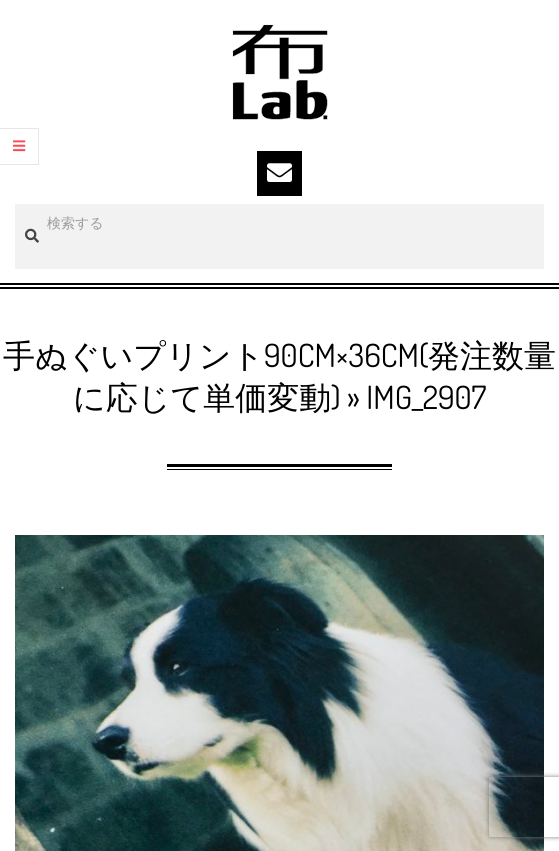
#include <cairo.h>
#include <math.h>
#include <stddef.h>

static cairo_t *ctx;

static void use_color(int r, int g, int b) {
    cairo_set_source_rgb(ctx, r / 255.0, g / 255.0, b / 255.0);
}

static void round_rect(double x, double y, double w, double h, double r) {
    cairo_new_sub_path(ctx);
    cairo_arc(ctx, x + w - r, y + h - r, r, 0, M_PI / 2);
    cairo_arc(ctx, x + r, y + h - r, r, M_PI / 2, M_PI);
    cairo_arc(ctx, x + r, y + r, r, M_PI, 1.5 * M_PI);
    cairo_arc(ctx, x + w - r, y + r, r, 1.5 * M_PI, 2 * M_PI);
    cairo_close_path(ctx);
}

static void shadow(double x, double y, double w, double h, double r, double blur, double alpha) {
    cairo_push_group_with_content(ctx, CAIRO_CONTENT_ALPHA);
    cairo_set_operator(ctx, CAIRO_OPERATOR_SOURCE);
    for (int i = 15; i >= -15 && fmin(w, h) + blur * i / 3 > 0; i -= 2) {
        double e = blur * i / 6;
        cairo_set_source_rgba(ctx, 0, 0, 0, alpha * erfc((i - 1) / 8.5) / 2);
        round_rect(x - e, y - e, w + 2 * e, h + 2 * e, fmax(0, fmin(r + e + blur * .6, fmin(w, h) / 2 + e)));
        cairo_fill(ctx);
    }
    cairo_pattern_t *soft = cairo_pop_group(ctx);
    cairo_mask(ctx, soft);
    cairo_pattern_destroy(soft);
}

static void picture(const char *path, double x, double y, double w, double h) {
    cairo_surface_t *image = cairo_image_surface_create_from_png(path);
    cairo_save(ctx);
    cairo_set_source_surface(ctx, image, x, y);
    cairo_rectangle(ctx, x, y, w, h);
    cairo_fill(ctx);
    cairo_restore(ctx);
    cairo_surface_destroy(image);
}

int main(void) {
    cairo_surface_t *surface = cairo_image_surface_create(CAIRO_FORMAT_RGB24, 559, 851);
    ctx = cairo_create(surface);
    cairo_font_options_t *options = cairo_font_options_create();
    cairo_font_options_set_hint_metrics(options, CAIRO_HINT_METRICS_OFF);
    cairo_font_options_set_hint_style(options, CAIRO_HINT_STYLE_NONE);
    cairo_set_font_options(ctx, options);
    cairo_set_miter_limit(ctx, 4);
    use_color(255, 255, 255);
    cairo_paint(ctx);
    use_color(0, 0, 0);
    cairo_rectangle(ctx, 0, 283, 559, 2);
    cairo_fill(ctx);
    cairo_rectangle(ctx, 0, 287, 559, 2);
    cairo_fill(ctx);
    use_color(230, 230, 230);
    cairo_new_path(ctx);
    cairo_move_to(ctx, 0, 128);
    cairo_line_to(ctx, 39, 128);
    cairo_line_to(ctx, 38, 129);
    cairo_line_to(ctx, 0, 129);
    cairo_close_path(ctx);
    cairo_fill(ctx);
    cairo_set_source_rgba(ctx, 0, 0, 0, 0.1);
    cairo_new_path(ctx);
    cairo_move_to(ctx, 39, 128);
    cairo_line_to(ctx, 39, 165);
    cairo_line_to(ctx, 38, 164);
    cairo_line_to(ctx, 38, 129);
    cairo_close_path(ctx);
    cairo_fill(ctx);
    cairo_new_path(ctx);
    cairo_move_to(ctx, 39, 165);
    cairo_line_to(ctx, 0, 165);
    cairo_line_to(ctx, 0, 164);
    cairo_line_to(ctx, 38, 164);
    cairo_close_path(ctx);
    cairo_fill(ctx);
    picture("img1.png", 13, 140, 13, 12);
    picture("img2.png", 232, 24, 96, 96);
    use_color(0, 0, 0);
    cairo_rectangle(ctx, 257, 151, 45, 45);
    cairo_fill(ctx);
    picture("img3.png", 267, 163, 25, 19);
    use_color(242, 242, 242);
    cairo_rectangle(ctx, 15, 204, 529, 65);
    cairo_fill(ctx);
    cairo_select_font_face(ctx, "WenQuanYi Zen Hei Medium", CAIRO_FONT_SLANT_NORMAL, CAIRO_FONT_WEIGHT_NORMAL);
    cairo_set_font_size(ctx, 14);
    use_color(155, 155, 155);
    cairo_move_to(ctx, 47, 228);
    cairo_show_text(ctx, "検索する");
    picture("img4.png", 25, 228, 14, 15);
    cairo_set_font_size(ctx, 32);
    use_color(0, 0, 0);
    cairo_move_to(ctx, 3, 367);
    cairo_show_text(ctx, "手ぬぐいプリント");
    cairo_select_font_face(ctx, "Dosis", CAIRO_FONT_SLANT_NORMAL, CAIRO_FONT_WEIGHT_NORMAL);
    cairo_move_to(ctx, 264, 367);
    cairo_show_text(ctx, "90CM×36CM(");
    cairo_select_font_face(ctx, "WenQuanYi Zen Hei Medium", CAIRO_FONT_SLANT_NORMAL, CAIRO_FONT_WEIGHT_NORMAL);
    cairo_move_to(ctx, 428, 367);
    cairo_show_text(ctx, "発注数量");
    cairo_move_to(ctx, 73, 409);
    cairo_show_text(ctx, "に応じて単価変動");
    cairo_select_font_face(ctx, "Dosis", CAIRO_FONT_SLANT_NORMAL, CAIRO_FONT_WEIGHT_NORMAL);
    cairo_move_to(ctx, 331, 409);
    cairo_show_text(ctx, ") » IMG_2907");
    cairo_rectangle(ctx, 167, 464, 225, 3);
    cairo_fill(ctx);
    cairo_rectangle(ctx, 167, 469, 225, 1);
    cairo_fill(ctx);
    picture("img5.png", 15, 535, 529, 316);
    cairo_save(ctx);
    cairo_set_fill_rule(ctx, CAIRO_FILL_RULE_EVEN_ODD);
    cairo_new_path(ctx);
    cairo_move_to(ctx, 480, 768);
    cairo_line_to(ctx, 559, 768);
    cairo_line_to(ctx, 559, 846);
    cairo_line_to(ctx, 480, 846);
    cairo_close_path(ctx);
    cairo_move_to(ctx, 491, 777);
    cairo_line_to(ctx, 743, 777);
    cairo_curve_to(ctx, 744, 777, 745, 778, 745, 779);
    cairo_line_to(ctx, 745, 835);
    cairo_curve_to(ctx, 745, 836, 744, 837, 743, 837);
    cairo_line_to(ctx, 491, 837);
    cairo_curve_to(ctx, 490, 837, 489, 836, 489, 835);
    cairo_line_to(ctx, 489, 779);
    cairo_curve_to(ctx, 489, 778, 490, 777, 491, 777);
    cairo_close_path(ctx);
    cairo_clip(ctx);
    use_color(128, 128, 128);
    shadow(489, 777, 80, 60, 2, 2.5, 1);
    cairo_restore(ctx);
    cairo_surface_write_to_png(surface, "result.png");
    cairo_font_options_destroy(options);
    cairo_destroy(ctx);
    cairo_surface_destroy(surface);
    return 0;
}
